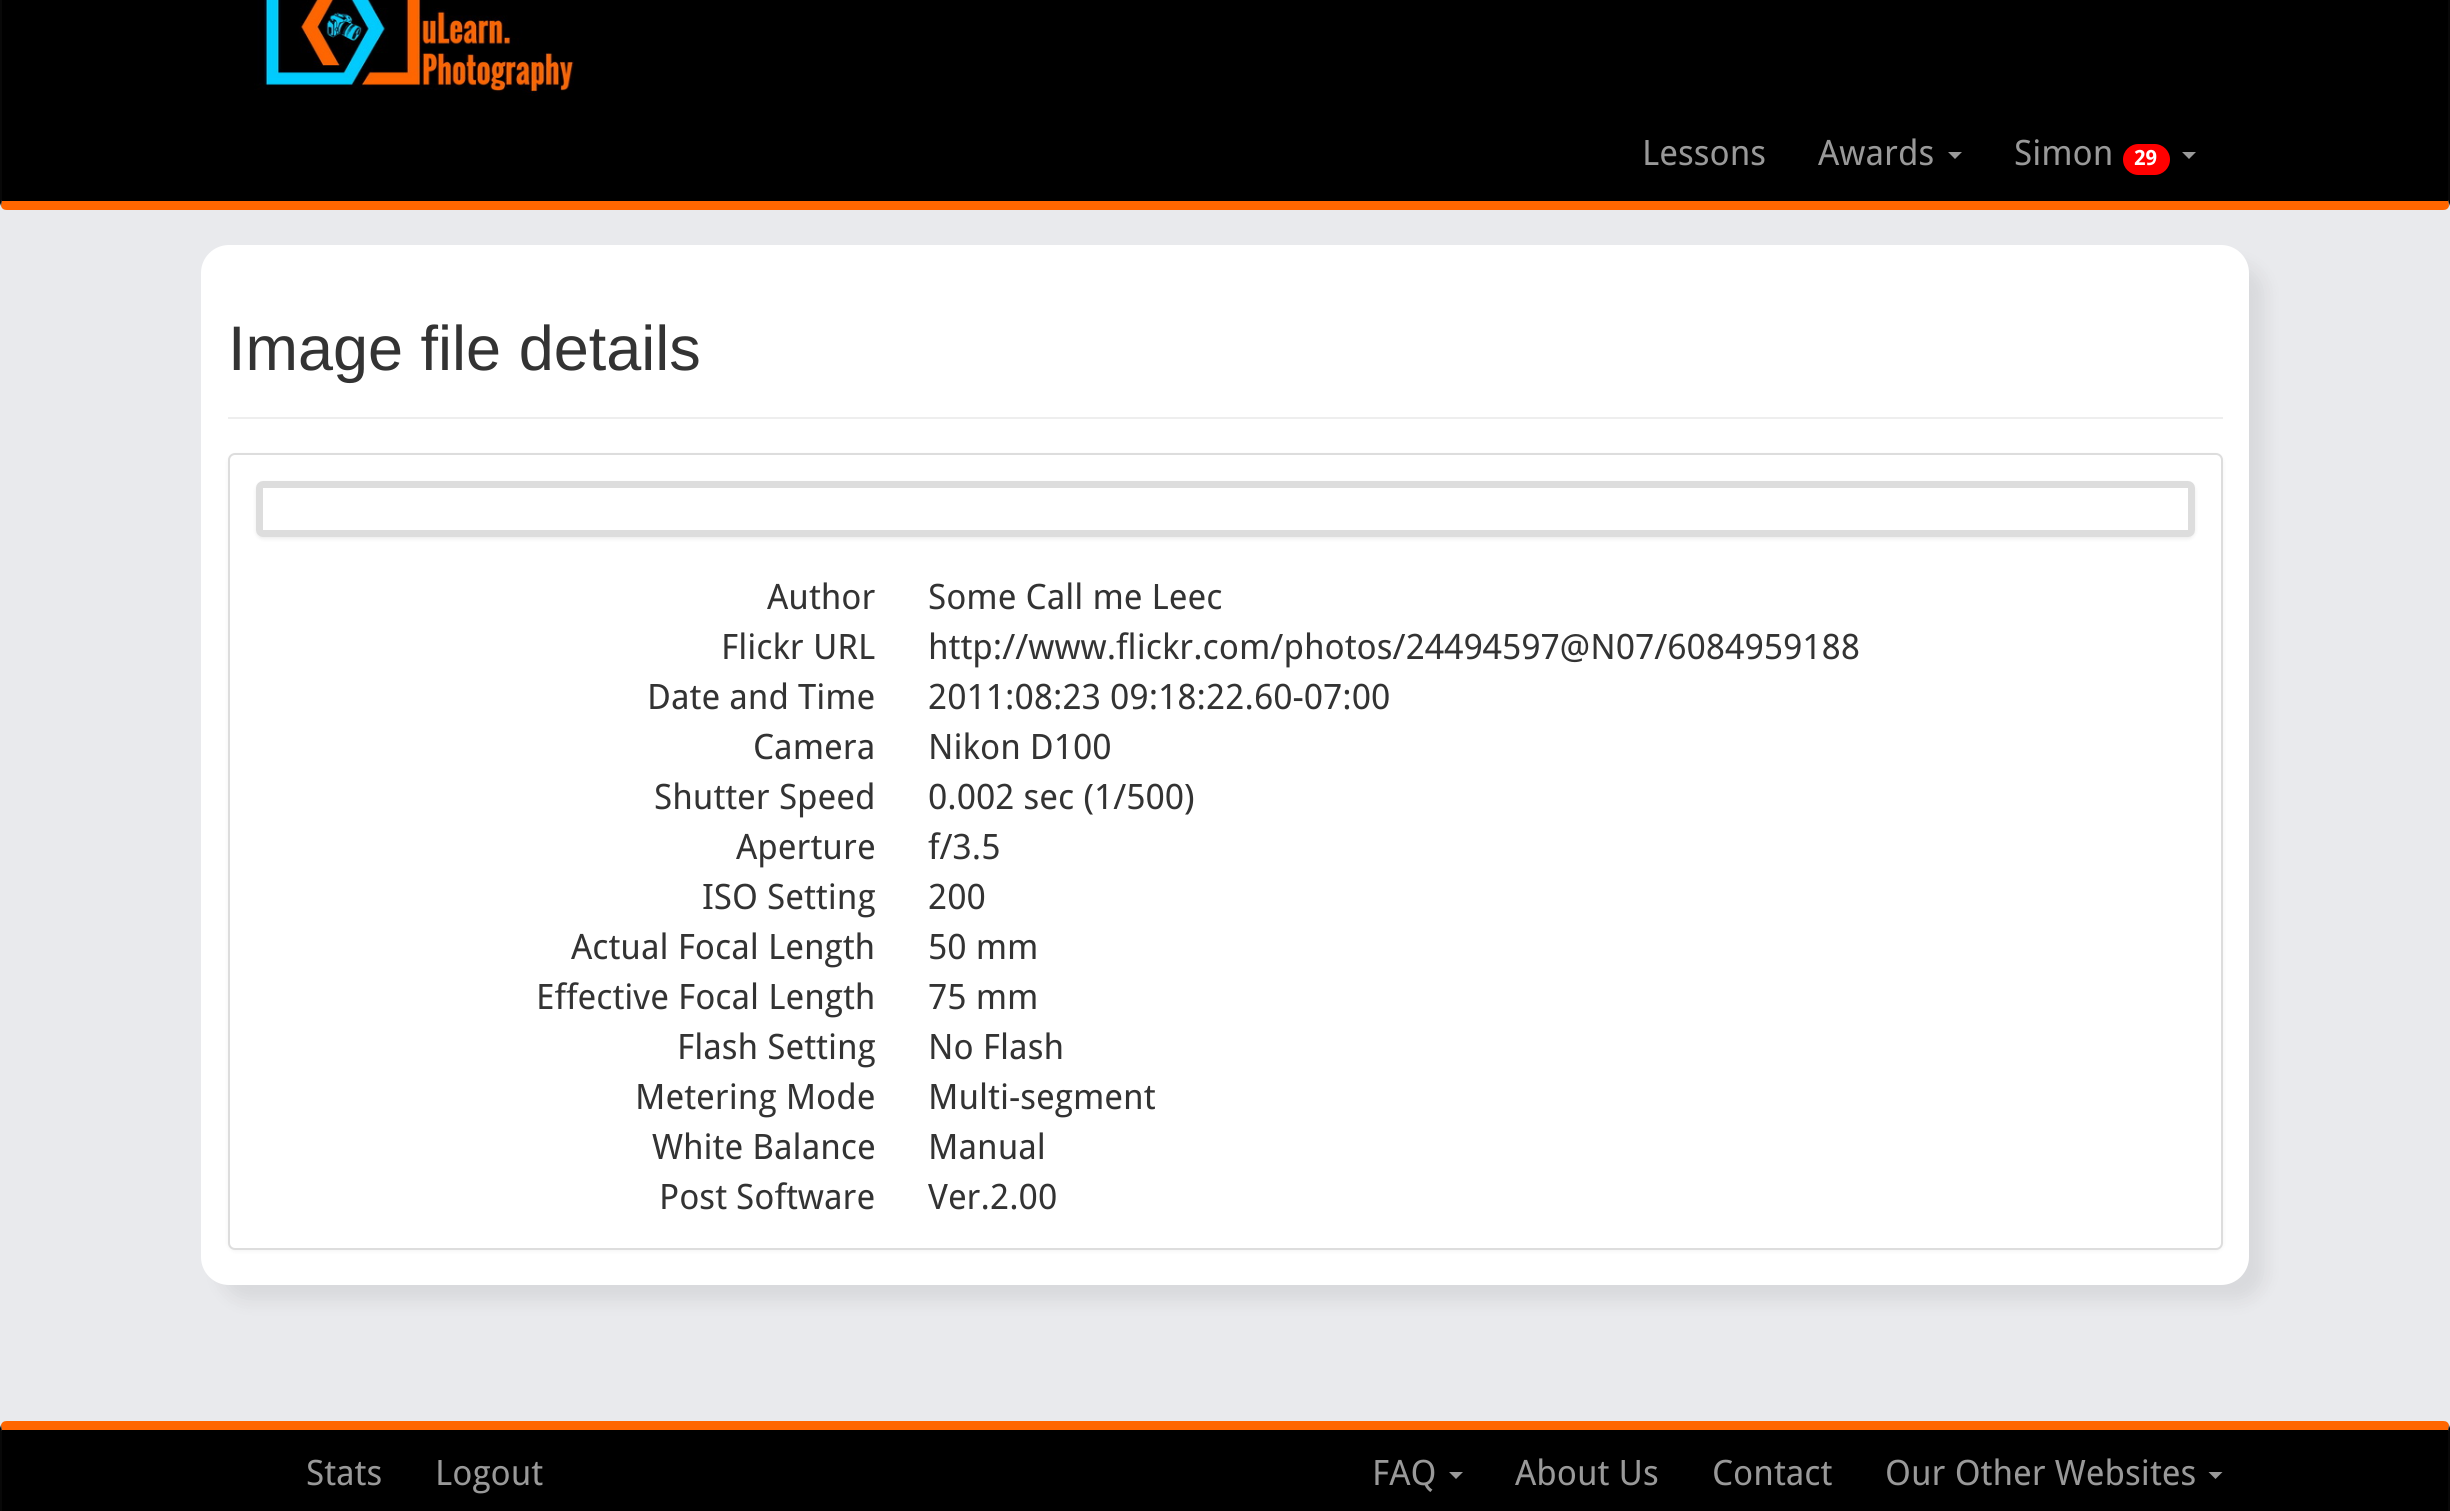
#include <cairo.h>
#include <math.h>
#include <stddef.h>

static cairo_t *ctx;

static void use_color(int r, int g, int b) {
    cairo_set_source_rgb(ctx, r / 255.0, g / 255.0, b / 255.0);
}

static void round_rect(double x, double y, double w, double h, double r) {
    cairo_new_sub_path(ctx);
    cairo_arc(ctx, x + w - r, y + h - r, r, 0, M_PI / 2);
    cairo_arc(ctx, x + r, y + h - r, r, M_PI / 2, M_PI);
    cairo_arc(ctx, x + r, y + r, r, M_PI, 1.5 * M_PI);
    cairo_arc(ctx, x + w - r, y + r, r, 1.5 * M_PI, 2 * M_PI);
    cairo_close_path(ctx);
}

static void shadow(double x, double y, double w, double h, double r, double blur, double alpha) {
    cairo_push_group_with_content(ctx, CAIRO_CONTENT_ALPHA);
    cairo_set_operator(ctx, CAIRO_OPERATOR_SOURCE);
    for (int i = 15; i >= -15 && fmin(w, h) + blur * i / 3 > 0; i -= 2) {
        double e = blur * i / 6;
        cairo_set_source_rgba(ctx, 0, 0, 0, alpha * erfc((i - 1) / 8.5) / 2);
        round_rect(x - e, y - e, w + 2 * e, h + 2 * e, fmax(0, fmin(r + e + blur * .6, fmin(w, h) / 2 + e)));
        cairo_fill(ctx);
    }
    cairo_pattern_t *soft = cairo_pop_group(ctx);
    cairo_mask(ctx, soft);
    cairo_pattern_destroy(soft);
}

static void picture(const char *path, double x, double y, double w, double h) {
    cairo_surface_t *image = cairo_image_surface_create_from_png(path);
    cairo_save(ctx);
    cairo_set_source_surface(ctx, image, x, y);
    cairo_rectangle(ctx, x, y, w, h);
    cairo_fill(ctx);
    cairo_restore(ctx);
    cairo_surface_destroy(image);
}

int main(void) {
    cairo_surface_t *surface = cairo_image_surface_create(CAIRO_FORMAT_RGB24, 2450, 1511);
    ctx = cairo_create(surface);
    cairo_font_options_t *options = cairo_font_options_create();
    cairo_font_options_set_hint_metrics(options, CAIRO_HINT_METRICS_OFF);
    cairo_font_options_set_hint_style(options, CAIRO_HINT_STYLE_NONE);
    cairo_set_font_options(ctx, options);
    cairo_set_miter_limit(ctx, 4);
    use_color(233, 234, 237);
    cairo_paint(ctx);
    use_color(0, 0, 0);
    cairo_new_path(ctx);
    cairo_move_to(ctx, 7, -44);
    cairo_line_to(ctx, 2443, -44);
    cairo_curve_to(ctx, 2446, -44, 2448, -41, 2448, -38);
    cairo_line_to(ctx, 2448, 201);
    cairo_line_to(ctx, 2, 201);
    cairo_line_to(ctx, 2, -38);
    cairo_curve_to(ctx, 2, -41, 4, -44, 7, -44);
    cairo_close_path(ctx);
    cairo_fill(ctx);
    use_color(8, 8, 8);
    cairo_new_path(ctx);
    cairo_move_to(ctx, 2450, 203);
    cairo_line_to(ctx, 2450, -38);
    cairo_curve_to(ctx, 2450, -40, 2449, -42, 2448, -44);
    cairo_line_to(ctx, 2447, -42);
    cairo_curve_to(ctx, 2448, -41, 2448, -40, 2448, -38);
    cairo_line_to(ctx, 2448, 200);
    cairo_line_to(ctx, 2449, 206);
    cairo_close_path(ctx);
    cairo_fill(ctx);
    use_color(255, 102, 0);
    cairo_new_path(ctx);
    cairo_move_to(ctx, 7, 210);
    cairo_line_to(ctx, 2443, 210);
    cairo_curve_to(ctx, 2446, 210, 2448, 209, 2449, 206);
    cairo_line_to(ctx, 2448, 200);
    cairo_line_to(ctx, 2448, 201);
    cairo_line_to(ctx, 2, 201);
    cairo_line_to(ctx, 2, 200);
    cairo_line_to(ctx, 1, 206);
    cairo_curve_to(ctx, 2, 209, 4, 210, 7, 210);
    cairo_close_path(ctx);
    cairo_fill(ctx);
    use_color(8, 8, 8);
    cairo_new_path(ctx);
    cairo_move_to(ctx, 0, -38);
    cairo_line_to(ctx, 0, 203);
    cairo_line_to(ctx, 1, 206);
    cairo_line_to(ctx, 2, 200);
    cairo_line_to(ctx, 2, -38);
    cairo_curve_to(ctx, 2, -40, 2, -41, 3, -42);
    cairo_line_to(ctx, 2, -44);
    cairo_curve_to(ctx, 1, -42, 0, -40, 0, -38);
    cairo_close_path(ctx);
    cairo_fill(ctx);
    picture("img1.png", 254, 0, 320, 96);
    cairo_select_font_face(ctx, "Droid Sans", CAIRO_FONT_SLANT_NORMAL, CAIRO_FONT_WEIGHT_NORMAL);
    cairo_set_font_size(ctx, 35);
    use_color(153, 153, 153);
    cairo_move_to(ctx, 1642, 165);
    cairo_show_text(ctx, "Lessons");
    cairo_move_to(ctx, 1818, 165);
    cairo_show_text(ctx, "Awards");
    cairo_new_path(ctx);
    cairo_move_to(ctx, 1948, 152);
    cairo_line_to(ctx, 1962, 152);
    cairo_line_to(ctx, 1955, 159);
    cairo_close_path(ctx);
    cairo_fill(ctx);
    cairo_move_to(ctx, 2014, 165);
    cairo_show_text(ctx, "Simon");
    use_color(255, 0, 0);
    round_rect(2123, 144, 47, 31, 15.5);
    cairo_fill(ctx);
    cairo_select_font_face(ctx, "Droid Sans", CAIRO_FONT_SLANT_NORMAL, CAIRO_FONT_WEIGHT_BOLD);
    cairo_set_font_size(ctx, 21);
    use_color(255, 255, 255);
    cairo_move_to(ctx, 2134, 165);
    cairo_show_text(ctx, "29");
    use_color(153, 153, 153);
    cairo_new_path(ctx);
    cairo_move_to(ctx, 2182, 152);
    cairo_line_to(ctx, 2196, 152);
    cairo_line_to(ctx, 2189, 159);
    cairo_close_path(ctx);
    cairo_fill(ctx);
    use_color(0, 0, 0);
    shadow(219, 263, 2047, 1039, 28, 9, 0.07);
    use_color(255, 255, 255);
    round_rect(201, 245, 2048, 1040, 28);
    cairo_fill(ctx);
    use_color(238, 238, 238);
    cairo_rectangle(ctx, 228, 417, 1995, 2);
    cairo_fill(ctx);
    cairo_select_font_face(ctx, "Liberation Sans", CAIRO_FONT_SLANT_NORMAL, CAIRO_FONT_WEIGHT_NORMAL);
    cairo_set_font_size(ctx, 63);
    use_color(51, 51, 51);
    cairo_move_to(ctx, 228, 370);
    cairo_show_text(ctx, "Image file details");
    use_color(0, 0, 0);
    shadow(228, 455, 1995, 796, 7, 2, 0.05);
    use_color(255, 255, 255);
    round_rect(229, 454, 1993, 795, 6);
    cairo_fill_preserve(ctx);
    use_color(221, 221, 221);
    cairo_stroke(ctx);
    use_color(0, 0, 0);
    shadow(256, 483, 1939, 56, 7, 2, 0.07);
    use_color(255, 255, 255);
    round_rect(259.5, 484.5, 1932, 49, 3.5);
    cairo_fill_preserve(ctx);
    use_color(221, 221, 221);
    cairo_set_line_width(ctx, 7);
    cairo_stroke(ctx);
    cairo_select_font_face(ctx, "Droid Sans", CAIRO_FONT_SLANT_NORMAL, CAIRO_FONT_WEIGHT_NORMAL);
    cairo_set_font_size(ctx, 35);
    use_color(51, 51, 51);
    cairo_move_to(ctx, 767, 609);
    cairo_show_text(ctx, "Author");
    cairo_move_to(ctx, 928, 609);
    cairo_show_text(ctx, "Some Call me Leec");
    cairo_move_to(ctx, 721, 659);
    cairo_show_text(ctx, "Flickr URL");
    cairo_move_to(ctx, 928, 659);
    cairo_show_text(ctx, "http://www.flickr.com/photos/24494597@N07/6084959188");
    cairo_move_to(ctx, 647, 709);
    cairo_show_text(ctx, "Date and Time");
    cairo_move_to(ctx, 928, 709);
    cairo_show_text(ctx, "2011:08:23 09:18:22.60-07:00");
    cairo_move_to(ctx, 753, 759);
    cairo_show_text(ctx, "Camera");
    cairo_move_to(ctx, 928, 759);
    cairo_show_text(ctx, "Nikon D100");
    cairo_move_to(ctx, 654, 809);
    cairo_show_text(ctx, "Shutter Speed");
    cairo_move_to(ctx, 928, 809);
    cairo_show_text(ctx, "0.002 sec (1/500)");
    cairo_move_to(ctx, 736, 859);
    cairo_show_text(ctx, "Aperture");
    cairo_move_to(ctx, 928, 859);
    cairo_show_text(ctx, "f/3.5");
    cairo_move_to(ctx, 702, 909);
    cairo_show_text(ctx, "ISO Setting");
    cairo_move_to(ctx, 928, 909);
    cairo_show_text(ctx, "200");
    cairo_move_to(ctx, 571, 959);
    cairo_show_text(ctx, "Actual Focal Length");
    cairo_move_to(ctx, 928, 959);
    cairo_show_text(ctx, "50 mm");
    cairo_move_to(ctx, 536, 1009);
    cairo_show_text(ctx, "Effective Focal Length");
    cairo_move_to(ctx, 928, 1009);
    cairo_show_text(ctx, "75 mm");
    cairo_move_to(ctx, 677, 1059);
    cairo_show_text(ctx, "Flash Setting");
    cairo_move_to(ctx, 928, 1059);
    cairo_show_text(ctx, "No Flash");
    cairo_move_to(ctx, 635, 1109);
    cairo_show_text(ctx, "Metering Mode");
    cairo_move_to(ctx, 928, 1109);
    cairo_show_text(ctx, "Multi-segment");
    cairo_move_to(ctx, 652, 1159);
    cairo_show_text(ctx, "White Balance");
    cairo_move_to(ctx, 928, 1159);
    cairo_show_text(ctx, "Manual");
    cairo_move_to(ctx, 659, 1209);
    cairo_show_text(ctx, "Post Software");
    cairo_move_to(ctx, 928, 1209);
    cairo_show_text(ctx, "Ver.2.00");
    use_color(0, 0, 0);
    cairo_new_path(ctx);
    cairo_move_to(ctx, 7, 1430);
    cairo_line_to(ctx, 2448, 1430);
    cairo_line_to(ctx, 2448, 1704);
    cairo_curve_to(ctx, 2448, 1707, 2446, 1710, 2443, 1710);
    cairo_line_to(ctx, 7, 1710);
    cairo_curve_to(ctx, 4, 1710, 2, 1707, 2, 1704);
    cairo_line_to(ctx, 2, 1430);
    cairo_close_path(ctx);
    cairo_fill(ctx);
    use_color(255, 102, 0);
    cairo_new_path(ctx);
    cairo_move_to(ctx, 7, 1421);
    cairo_curve_to(ctx, 4, 1421, 2, 1422, 1, 1425);
    cairo_line_to(ctx, 2, 1431);
    cairo_line_to(ctx, 2, 1430);
    cairo_line_to(ctx, 2448, 1430);
    cairo_line_to(ctx, 2448, 1431);
    cairo_line_to(ctx, 2449, 1425);
    cairo_curve_to(ctx, 2448, 1422, 2446, 1421, 2443, 1421);
    cairo_close_path(ctx);
    cairo_fill(ctx);
    use_color(8, 8, 8);
    cairo_new_path(ctx);
    cairo_move_to(ctx, 2450, 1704);
    cairo_line_to(ctx, 2450, 1428);
    cairo_line_to(ctx, 2449, 1425);
    cairo_line_to(ctx, 2448, 1431);
    cairo_line_to(ctx, 2448, 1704);
    cairo_curve_to(ctx, 2448, 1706, 2448, 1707, 2447, 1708);
    cairo_line_to(ctx, 2448, 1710);
    cairo_curve_to(ctx, 2449, 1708, 2450, 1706, 2450, 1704);
    cairo_close_path(ctx);
    cairo_fill(ctx);
    cairo_new_path(ctx);
    cairo_move_to(ctx, 0, 1428);
    cairo_line_to(ctx, 0, 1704);
    cairo_curve_to(ctx, 0, 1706, 1, 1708, 2, 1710);
    cairo_line_to(ctx, 3, 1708);
    cairo_curve_to(ctx, 2, 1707, 2, 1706, 2, 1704);
    cairo_line_to(ctx, 2, 1431);
    cairo_line_to(ctx, 1, 1425);
    cairo_close_path(ctx);
    cairo_fill(ctx);
    use_color(153, 153, 153);
    cairo_move_to(ctx, 306, 1485);
    cairo_show_text(ctx, "Stats");
    cairo_move_to(ctx, 435, 1485);
    cairo_show_text(ctx, "Logout");
    cairo_move_to(ctx, 1372, 1485);
    cairo_show_text(ctx, "FAQ");
    cairo_new_path(ctx);
    cairo_move_to(ctx, 1449, 1472);
    cairo_line_to(ctx, 1463, 1472);
    cairo_line_to(ctx, 1456, 1479);
    cairo_close_path(ctx);
    cairo_fill(ctx);
    cairo_move_to(ctx, 1515, 1485);
    cairo_show_text(ctx, "About Us");
    cairo_move_to(ctx, 1712, 1485);
    cairo_show_text(ctx, "Contact");
    cairo_move_to(ctx, 1885, 1485);
    cairo_show_text(ctx, "Our Other Websites");
    cairo_new_path(ctx);
    cairo_move_to(ctx, 2208.5, 1472);
    cairo_line_to(ctx, 2222.5, 1472);
    cairo_line_to(ctx, 2215.5, 1479);
    cairo_close_path(ctx);
    cairo_fill(ctx);
    cairo_surface_write_to_png(surface, "result.png");
    cairo_font_options_destroy(options);
    cairo_destroy(ctx);
    cairo_surface_destroy(surface);
    return 0;
}
